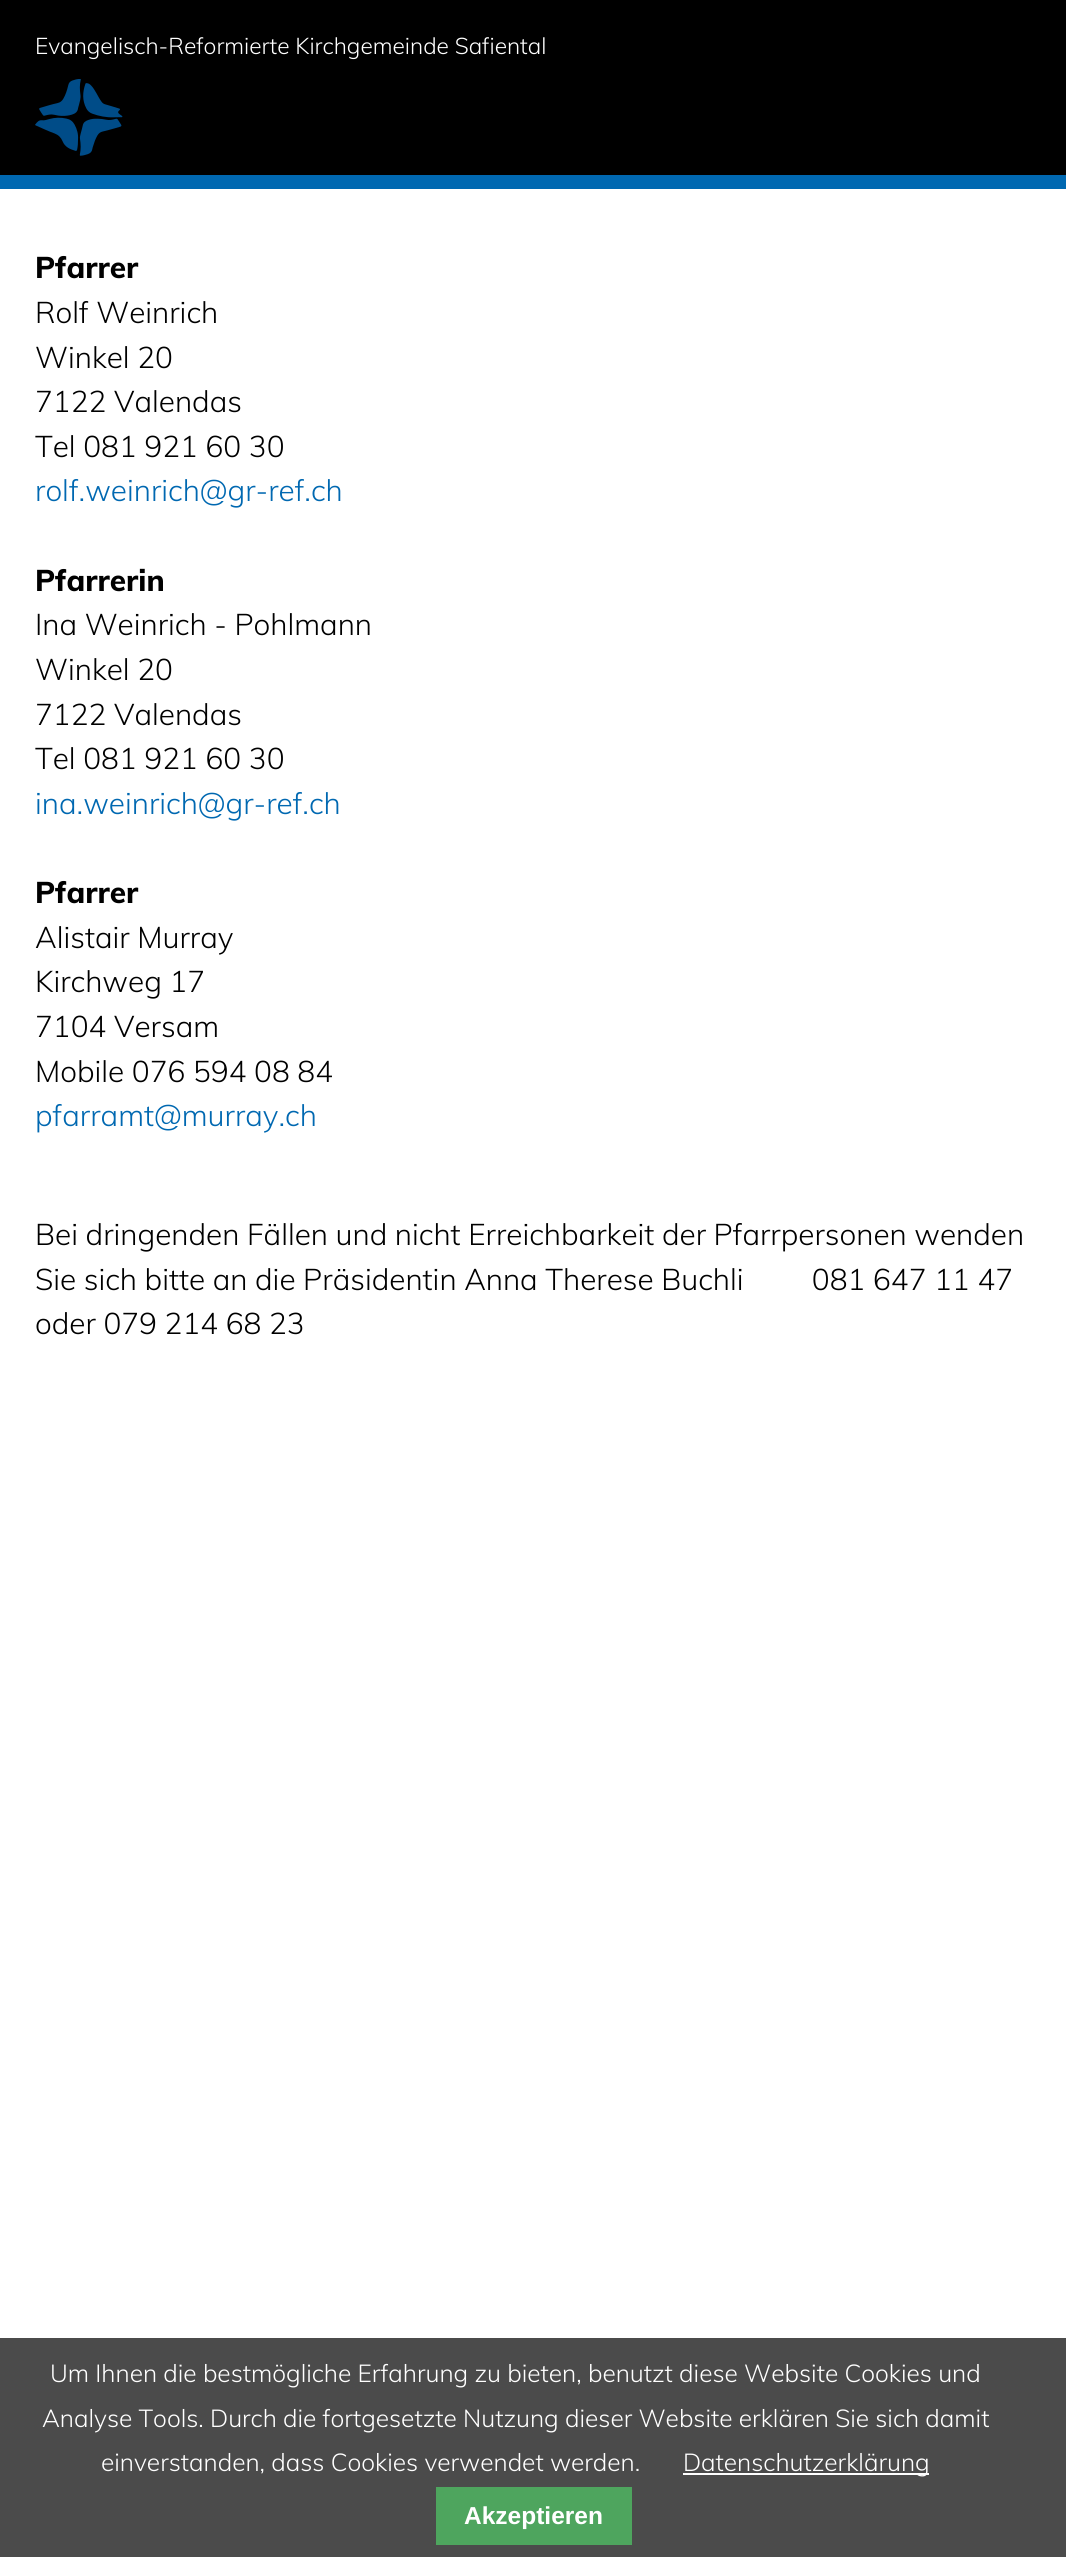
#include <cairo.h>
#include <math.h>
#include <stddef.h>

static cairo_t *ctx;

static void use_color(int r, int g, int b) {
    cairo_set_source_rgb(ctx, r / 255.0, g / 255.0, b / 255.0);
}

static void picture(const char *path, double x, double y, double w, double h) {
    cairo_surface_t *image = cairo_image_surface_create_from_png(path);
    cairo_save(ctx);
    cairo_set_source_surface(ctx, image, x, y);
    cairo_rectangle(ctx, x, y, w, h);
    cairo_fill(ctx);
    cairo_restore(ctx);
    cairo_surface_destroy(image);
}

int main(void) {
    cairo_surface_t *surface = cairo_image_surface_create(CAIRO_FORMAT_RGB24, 1066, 2557);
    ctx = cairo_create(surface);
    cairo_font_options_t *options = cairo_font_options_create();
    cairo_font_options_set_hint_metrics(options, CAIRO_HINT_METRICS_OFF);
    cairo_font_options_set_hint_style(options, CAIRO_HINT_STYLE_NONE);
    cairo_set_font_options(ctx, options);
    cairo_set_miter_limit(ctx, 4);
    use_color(255, 255, 255);
    cairo_paint(ctx);
    use_color(0, 0, 0);
    cairo_rectangle(ctx, 0, 0, 1066, 175);
    cairo_fill(ctx);
    use_color(0, 104, 177);
    cairo_rectangle(ctx, 0, 175, 1066, 14);
    cairo_fill(ctx);
    cairo_select_font_face(ctx, "Muli Light", CAIRO_FONT_SLANT_NORMAL, CAIRO_FONT_WEIGHT_NORMAL);
    cairo_set_font_size(ctx, 22.75);
    use_color(255, 255, 255);
    cairo_move_to(ctx, 35, 54);
    cairo_show_text(ctx, "Evangelisch-Reformierte Kirchgemeinde Safiental");
    picture("img1.png", 35, 79, 88, 77);
    cairo_select_font_face(ctx, "Muli ExtraBold", CAIRO_FONT_SLANT_NORMAL, CAIRO_FONT_WEIGHT_NORMAL);
    cairo_set_font_size(ctx, 29.75);
    use_color(0, 0, 0);
    cairo_move_to(ctx, 35, 278);
    cairo_show_text(ctx, "Pfarrer");
    cairo_select_font_face(ctx, "Muli Light", CAIRO_FONT_SLANT_NORMAL, CAIRO_FONT_WEIGHT_NORMAL);
    cairo_move_to(ctx, 35, 323);
    cairo_show_text(ctx, "Rolf Weinrich");
    cairo_move_to(ctx, 35, 368);
    cairo_show_text(ctx, "Winkel 20");
    cairo_move_to(ctx, 35, 412);
    cairo_show_text(ctx, "7122 Valendas");
    cairo_move_to(ctx, 35, 457);
    cairo_show_text(ctx, "Tel 081 921 60 30");
    use_color(0, 104, 177);
    cairo_move_to(ctx, 35, 501);
    cairo_show_text(ctx, "rolf.weinrich@gr-ref.ch");
    cairo_select_font_face(ctx, "Muli ExtraBold", CAIRO_FONT_SLANT_NORMAL, CAIRO_FONT_WEIGHT_NORMAL);
    use_color(0, 0, 0);
    cairo_move_to(ctx, 35, 591);
    cairo_show_text(ctx, "Pfarrerin");
    cairo_select_font_face(ctx, "Muli Light", CAIRO_FONT_SLANT_NORMAL, CAIRO_FONT_WEIGHT_NORMAL);
    cairo_move_to(ctx, 35, 635);
    cairo_show_text(ctx, "Ina Weinrich - Pohlmann");
    cairo_move_to(ctx, 35, 680);
    cairo_show_text(ctx, "Winkel 20");
    cairo_move_to(ctx, 35, 725);
    cairo_show_text(ctx, "7122 Valendas");
    cairo_move_to(ctx, 35, 769);
    cairo_show_text(ctx, "Tel 081 921 60 30");
    use_color(0, 104, 177);
    cairo_move_to(ctx, 35, 814);
    cairo_show_text(ctx, "ina.weinrich@gr-ref.ch");
    cairo_select_font_face(ctx, "Muli ExtraBold", CAIRO_FONT_SLANT_NORMAL, CAIRO_FONT_WEIGHT_NORMAL);
    use_color(0, 0, 0);
    cairo_move_to(ctx, 35, 903);
    cairo_show_text(ctx, "Pfarrer");
    cairo_select_font_face(ctx, "Muli Light", CAIRO_FONT_SLANT_NORMAL, CAIRO_FONT_WEIGHT_NORMAL);
    cairo_move_to(ctx, 35, 948);
    cairo_show_text(ctx, "Alistair Murray");
    cairo_move_to(ctx, 35, 992);
    cairo_show_text(ctx, "Kirchweg 17");
    cairo_move_to(ctx, 35, 1037);
    cairo_show_text(ctx, "7104 Versam");
    cairo_move_to(ctx, 35, 1082);
    cairo_show_text(ctx, "Mobile 076 594 08 84");
    use_color(0, 104, 177);
    cairo_move_to(ctx, 35, 1126);
    cairo_show_text(ctx, "pfarramt@murray.ch");
    use_color(0, 0, 0);
    cairo_move_to(ctx, 35, 1245);
    cairo_show_text(ctx, "Bei dringenden Fällen und nicht Erreichbarkeit der Pfarrpersonen wenden");
    cairo_move_to(ctx, 35, 1290);
    cairo_show_text(ctx, "Sie sich bitte an die Präsidentin Anna Therese Buchli         081 647 11 47");
    cairo_move_to(ctx, 35, 1334);
    cairo_show_text(ctx, "oder 079 214 68 23");
    use_color(75, 75, 75);
    cairo_rectangle(ctx, 0, 2338, 1066, 219);
    cairo_fill(ctx);
    cairo_set_font_size(ctx, 24.5);
    use_color(255, 255, 255);
    cairo_move_to(ctx, 50, 2382);
    cairo_show_text(ctx, "Um Ihnen die bestmögliche Erfahrung zu bieten, benutzt diese Website Cookies und");
    cairo_move_to(ctx, 42, 2427);
    cairo_show_text(ctx, "Analyse Tools. Durch die fortgesetzte Nutzung dieser Website erklären Sie sich damit");
    cairo_move_to(ctx, 101, 2471);
    cairo_show_text(ctx, "einverstanden, dass Cookies verwendet werden.");
    cairo_rectangle(ctx, 683, 2473, 246, 2);
    cairo_fill(ctx);
    cairo_move_to(ctx, 683, 2471);
    cairo_show_text(ctx, "Datenschutzerklärung");
    use_color(78, 165, 94);
    cairo_rectangle(ctx, 436, 2487, 196, 58);
    cairo_fill(ctx);
    cairo_select_font_face(ctx, "Liberation Sans", CAIRO_FONT_SLANT_NORMAL, CAIRO_FONT_WEIGHT_BOLD);
    use_color(255, 255, 255);
    cairo_move_to(ctx, 464, 2524);
    cairo_show_text(ctx, "Akzeptieren");
    cairo_surface_write_to_png(surface, "result.png");
    cairo_font_options_destroy(options);
    cairo_destroy(ctx);
    cairo_surface_destroy(surface);
    return 0;
}
